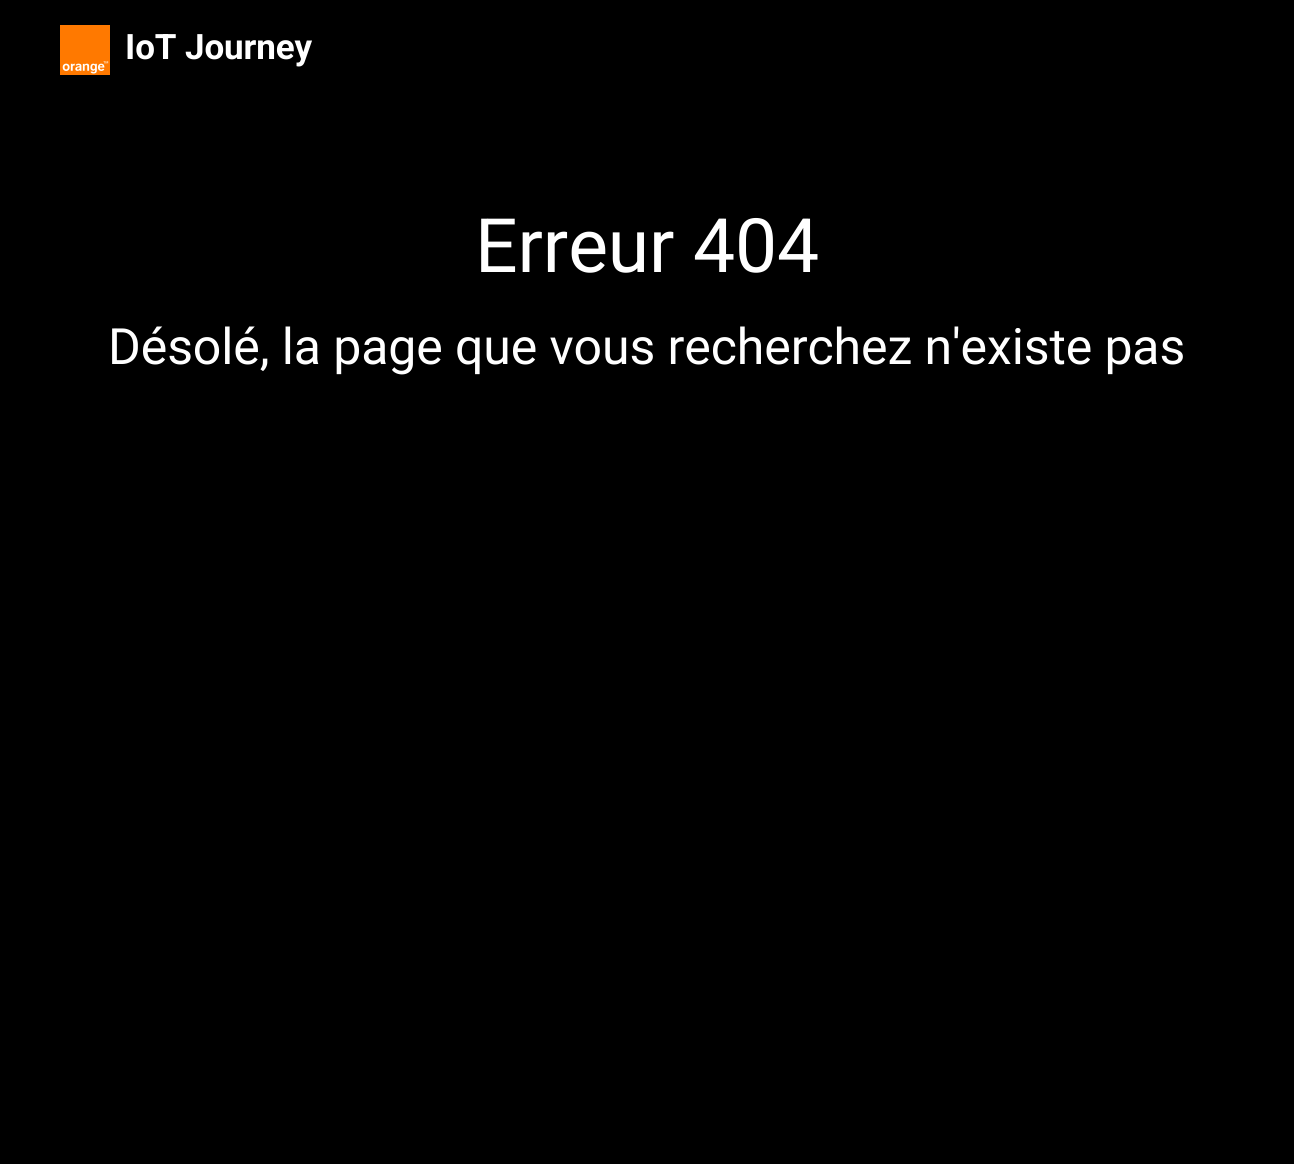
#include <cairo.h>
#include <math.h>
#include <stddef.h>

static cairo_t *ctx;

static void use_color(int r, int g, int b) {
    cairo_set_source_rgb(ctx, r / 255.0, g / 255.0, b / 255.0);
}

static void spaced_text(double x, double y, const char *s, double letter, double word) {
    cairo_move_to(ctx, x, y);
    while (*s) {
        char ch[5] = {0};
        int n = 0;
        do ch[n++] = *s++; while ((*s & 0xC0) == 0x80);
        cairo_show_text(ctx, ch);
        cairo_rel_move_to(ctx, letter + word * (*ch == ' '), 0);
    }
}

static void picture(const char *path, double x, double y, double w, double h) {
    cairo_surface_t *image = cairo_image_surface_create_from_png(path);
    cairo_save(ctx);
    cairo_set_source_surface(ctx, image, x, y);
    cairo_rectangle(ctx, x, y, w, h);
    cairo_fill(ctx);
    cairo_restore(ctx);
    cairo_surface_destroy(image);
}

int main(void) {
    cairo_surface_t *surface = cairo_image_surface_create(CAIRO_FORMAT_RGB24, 1294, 1164);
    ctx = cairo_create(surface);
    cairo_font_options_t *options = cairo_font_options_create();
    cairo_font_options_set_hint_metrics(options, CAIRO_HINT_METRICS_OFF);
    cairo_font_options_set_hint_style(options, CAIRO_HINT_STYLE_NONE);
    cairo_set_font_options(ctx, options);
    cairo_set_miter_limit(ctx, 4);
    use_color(0, 0, 0);
    cairo_paint(ctx);
    picture("img1.png", 60, 25, 50, 50);
    cairo_select_font_face(ctx, "Roboto", CAIRO_FONT_SLANT_NORMAL, CAIRO_FONT_WEIGHT_BOLD);
    cairo_set_font_size(ctx, 35);
    use_color(255, 255, 255);
    spaced_text(125, 59, "IoT Journey", -0.1, 0);
    cairo_select_font_face(ctx, "Roboto", CAIRO_FONT_SLANT_NORMAL, CAIRO_FONT_WEIGHT_NORMAL);
    cairo_set_font_size(ctx, 75);
    spaced_text(475, 272, "Erreur 404", -0.1, 0);
    cairo_set_font_size(ctx, 50);
    spaced_text(108, 364, "Désolé, la page que vous recherchez n'existe pas", -0.1, 0);
    cairo_surface_write_to_png(surface, "result.png");
    cairo_font_options_destroy(options);
    cairo_destroy(ctx);
    cairo_surface_destroy(surface);
    return 0;
}
